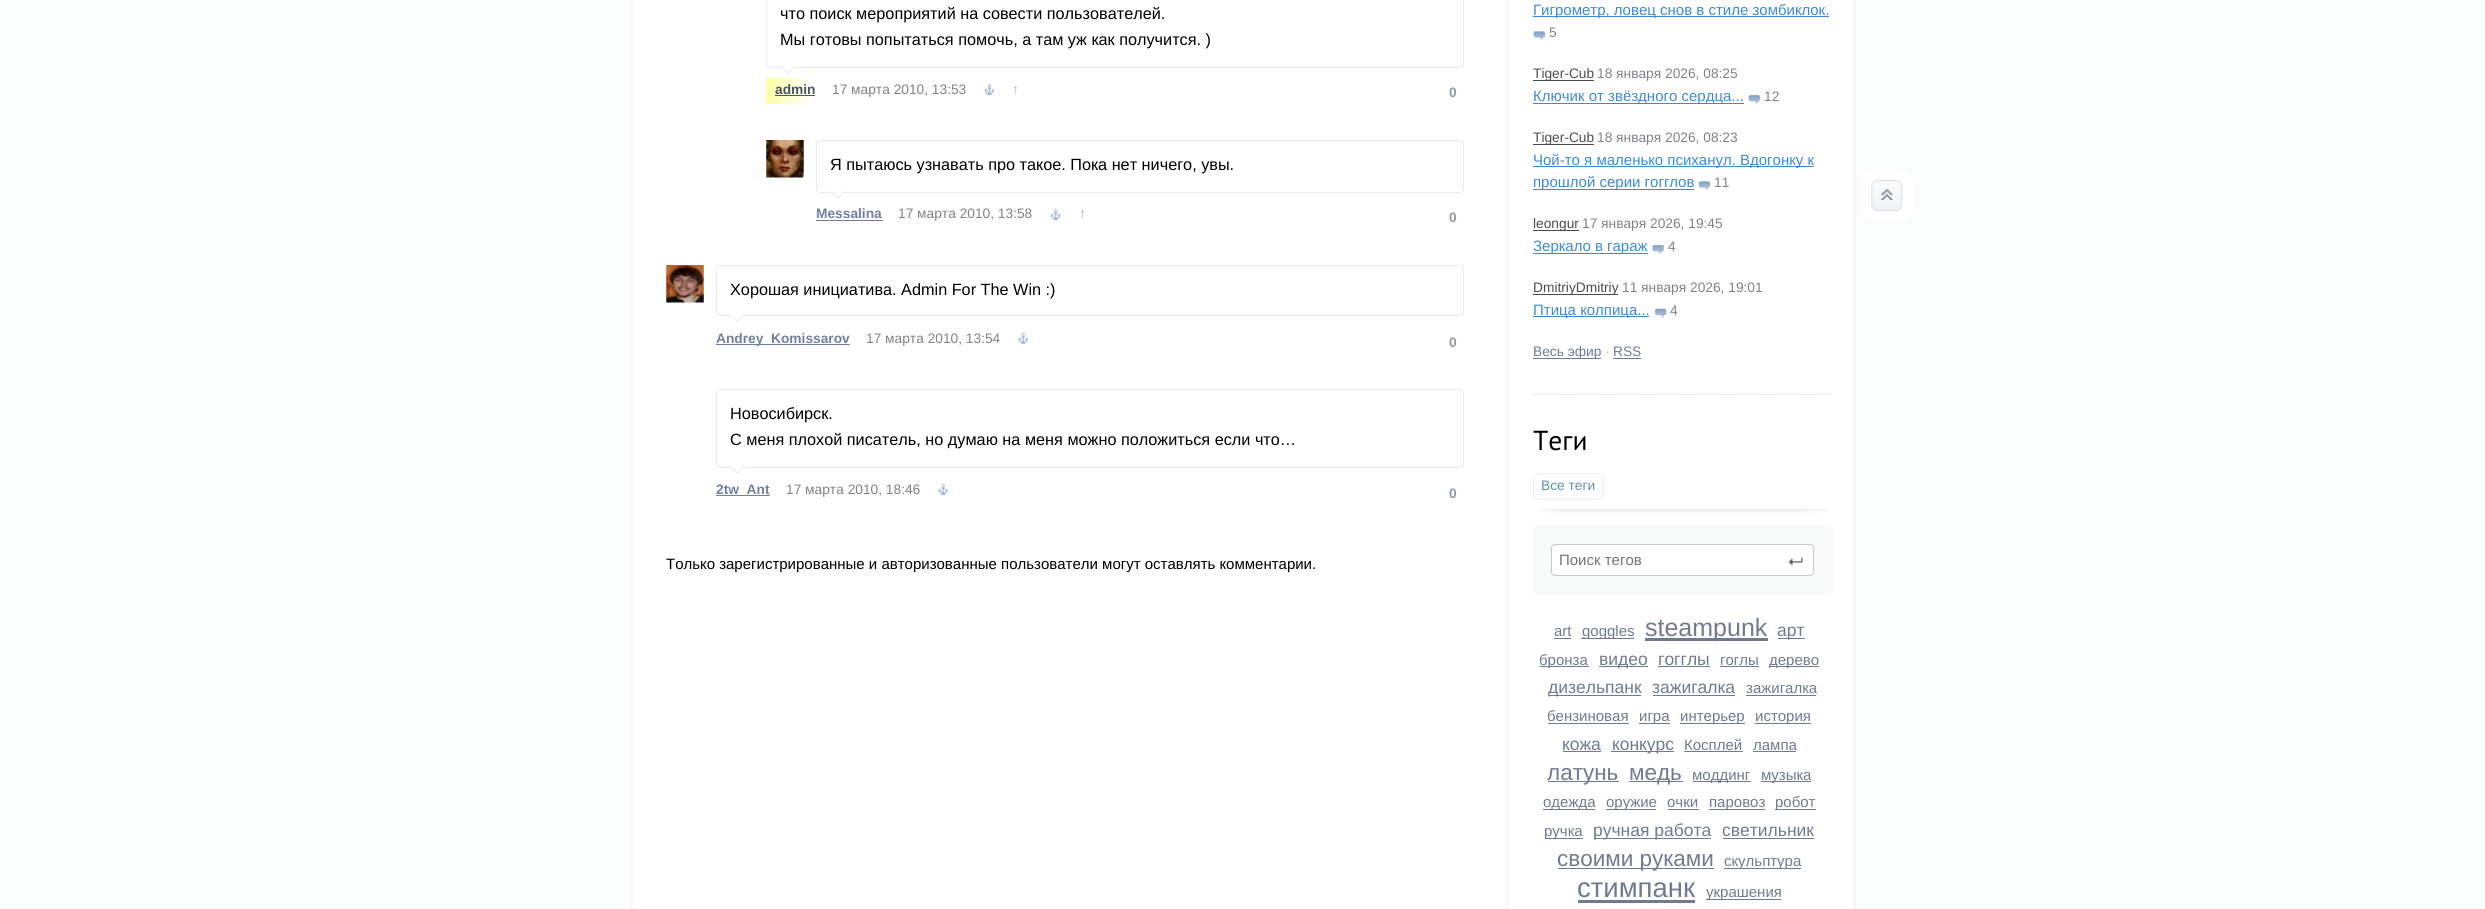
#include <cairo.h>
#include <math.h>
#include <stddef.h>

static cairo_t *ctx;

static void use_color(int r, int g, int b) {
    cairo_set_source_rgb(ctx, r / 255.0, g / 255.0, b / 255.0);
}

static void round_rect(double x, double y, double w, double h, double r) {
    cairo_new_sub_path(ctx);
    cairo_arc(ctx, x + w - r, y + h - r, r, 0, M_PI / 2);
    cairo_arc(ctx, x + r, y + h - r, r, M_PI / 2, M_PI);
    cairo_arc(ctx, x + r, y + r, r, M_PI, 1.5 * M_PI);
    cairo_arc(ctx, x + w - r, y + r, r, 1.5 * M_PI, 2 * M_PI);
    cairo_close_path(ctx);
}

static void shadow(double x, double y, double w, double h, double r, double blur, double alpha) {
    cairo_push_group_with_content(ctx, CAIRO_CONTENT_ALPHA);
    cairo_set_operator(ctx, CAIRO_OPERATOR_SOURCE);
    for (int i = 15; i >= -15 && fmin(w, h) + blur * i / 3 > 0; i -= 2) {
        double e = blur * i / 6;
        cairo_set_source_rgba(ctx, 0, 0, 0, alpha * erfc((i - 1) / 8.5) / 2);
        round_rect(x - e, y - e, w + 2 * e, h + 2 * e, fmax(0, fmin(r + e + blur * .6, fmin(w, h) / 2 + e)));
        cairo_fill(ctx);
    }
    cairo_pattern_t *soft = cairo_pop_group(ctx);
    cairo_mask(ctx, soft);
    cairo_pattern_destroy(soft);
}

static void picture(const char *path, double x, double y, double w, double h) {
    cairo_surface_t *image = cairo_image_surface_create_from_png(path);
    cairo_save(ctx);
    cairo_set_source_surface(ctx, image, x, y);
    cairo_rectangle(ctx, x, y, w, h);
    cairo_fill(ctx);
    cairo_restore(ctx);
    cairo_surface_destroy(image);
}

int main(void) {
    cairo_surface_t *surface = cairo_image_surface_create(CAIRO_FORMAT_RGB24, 2485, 909);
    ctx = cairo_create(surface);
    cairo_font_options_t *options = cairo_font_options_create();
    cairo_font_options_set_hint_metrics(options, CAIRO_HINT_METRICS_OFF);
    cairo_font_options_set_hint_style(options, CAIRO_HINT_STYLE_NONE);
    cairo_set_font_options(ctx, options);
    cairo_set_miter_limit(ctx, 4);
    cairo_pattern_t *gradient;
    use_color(251, 252, 252);
    cairo_paint(ctx);
    use_color(0, 0, 0);
    shadow(633, -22, 1220, 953, 13, 3, 0.05);
    use_color(255, 255, 255);
    cairo_rectangle(ctx, 633, 0, 1220, 909);
    cairo_fill(ctx);
    picture("img1.png", 1506, 0, 2, 909);
    round_rect(766.5, -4.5, 697, 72, 3.5);
    use_color(231, 235, 237);
    cairo_set_line_width(ctx, 1);
    cairo_stroke(ctx);
    cairo_select_font_face(ctx, "Liberation Sans", CAIRO_FONT_SLANT_NORMAL, CAIRO_FONT_WEIGHT_NORMAL);
    cairo_set_font_size(ctx, 16.25);
    use_color(0, 0, 0);
    cairo_move_to(ctx, 780, 19);
    cairo_show_text(ctx, "что поиск мероприятий на совести пользователей.");
    cairo_move_to(ctx, 780, 45);
    cairo_show_text(ctx, "Мы готовы попытаться помочь, а там уж как получится. )");
    use_color(231, 235, 237);
    cairo_new_path(ctx);
    cairo_move_to(ctx, 780, 66);
    cairo_line_to(ctx, 795, 66);
    cairo_line_to(ctx, 787.5, 74);
    cairo_close_path(ctx);
    cairo_fill(ctx);
    use_color(255, 255, 255);
    cairo_new_path(ctx);
    cairo_move_to(ctx, 780, 65);
    cairo_line_to(ctx, 795, 65);
    cairo_line_to(ctx, 787.5, 72.5);
    cairo_close_path(ctx);
    cairo_fill(ctx);
    gradient = cairo_pattern_create_linear(766, 91, 815, 91);
    cairo_pattern_add_color_stop_rgba(gradient, 0, 0.996, 1, 0.639, 1);
    cairo_pattern_add_color_stop_rgba(gradient, 1, 1, 1, 1, 1);
    cairo_set_source(ctx, gradient);
    cairo_pattern_destroy(gradient);
    cairo_rectangle(ctx, 766, 78, 48, 26);
    cairo_fill(ctx);
    cairo_select_font_face(ctx, "Liberation Sans", CAIRO_FONT_SLANT_NORMAL, CAIRO_FONT_WEIGHT_BOLD);
    cairo_set_font_size(ctx, 13.75);
    use_color(75, 84, 104);
    cairo_move_to(ctx, 775, 94);
    cairo_show_text(ctx, "admin");
    cairo_rectangle(ctx, 775, 95, 40, 1);
    cairo_fill(ctx);
    cairo_select_font_face(ctx, "Liberation Sans", CAIRO_FONT_SLANT_NORMAL, CAIRO_FONT_WEIGHT_NORMAL);
    use_color(129, 129, 137);
    cairo_move_to(ctx, 832, 94);
    cairo_show_text(ctx, "17 марта 2010, 13:53");
    picture("img2.png", 984, 83, 10, 13);
    use_color(162, 182, 205);
    cairo_move_to(ctx, 1012, 94);
    cairo_show_text(ctx, "↑");
    cairo_select_font_face(ctx, "Liberation Sans", CAIRO_FONT_SLANT_NORMAL, CAIRO_FONT_WEIGHT_BOLD);
    use_color(148, 154, 161);
    cairo_move_to(ctx, 1449, 97);
    cairo_show_text(ctx, "0");
    picture("img3.png", 766, 140, 38, 38);
    round_rect(816.5, 140.5, 647, 52, 3.5);
    use_color(231, 235, 237);
    cairo_stroke(ctx);
    cairo_select_font_face(ctx, "Liberation Sans", CAIRO_FONT_SLANT_NORMAL, CAIRO_FONT_WEIGHT_NORMAL);
    cairo_set_font_size(ctx, 16.25);
    use_color(0, 0, 0);
    cairo_move_to(ctx, 830, 170);
    cairo_show_text(ctx, "Я пытаюсь узнавать про такое. Пока нет ничего, увы.");
    use_color(231, 235, 237);
    cairo_new_path(ctx);
    cairo_move_to(ctx, 830, 191);
    cairo_line_to(ctx, 845, 191);
    cairo_line_to(ctx, 837.5, 199);
    cairo_close_path(ctx);
    cairo_fill(ctx);
    use_color(255, 255, 255);
    cairo_new_path(ctx);
    cairo_move_to(ctx, 830, 190);
    cairo_line_to(ctx, 845, 190);
    cairo_line_to(ctx, 837.5, 197.5);
    cairo_close_path(ctx);
    cairo_fill(ctx);
    cairo_select_font_face(ctx, "Liberation Sans", CAIRO_FONT_SLANT_NORMAL, CAIRO_FONT_WEIGHT_BOLD);
    cairo_set_font_size(ctx, 13.75);
    use_color(114, 127, 160);
    cairo_move_to(ctx, 816, 218);
    cairo_show_text(ctx, "Messalina");
    cairo_rectangle(ctx, 816, 220, 67, 1);
    cairo_fill(ctx);
    cairo_select_font_face(ctx, "Liberation Sans", CAIRO_FONT_SLANT_NORMAL, CAIRO_FONT_WEIGHT_NORMAL);
    use_color(129, 129, 137);
    cairo_move_to(ctx, 898, 218);
    cairo_show_text(ctx, "17 марта 2010, 13:58");
    picture("img4.png", 1051, 208, 10, 13);
    use_color(162, 182, 205);
    cairo_move_to(ctx, 1079, 218);
    cairo_show_text(ctx, "↑");
    cairo_select_font_face(ctx, "Liberation Sans", CAIRO_FONT_SLANT_NORMAL, CAIRO_FONT_WEIGHT_BOLD);
    use_color(148, 154, 161);
    cairo_move_to(ctx, 1449, 222);
    cairo_show_text(ctx, "0");
    picture("img5.png", 666, 265, 38, 38);
    round_rect(716.5, 265.5, 747, 50, 3.5);
    use_color(231, 235, 237);
    cairo_stroke(ctx);
    cairo_select_font_face(ctx, "Liberation Sans", CAIRO_FONT_SLANT_NORMAL, CAIRO_FONT_WEIGHT_NORMAL);
    cairo_set_font_size(ctx, 16.25);
    use_color(0, 0, 0);
    cairo_move_to(ctx, 730, 295);
    cairo_show_text(ctx, "Хорошая инициатива. Admin For The Win :)");
    use_color(231, 235, 237);
    cairo_new_path(ctx);
    cairo_move_to(ctx, 730, 315);
    cairo_line_to(ctx, 745, 315);
    cairo_line_to(ctx, 737.5, 322.5);
    cairo_close_path(ctx);
    cairo_fill(ctx);
    use_color(255, 255, 255);
    cairo_new_path(ctx);
    cairo_move_to(ctx, 730, 314);
    cairo_line_to(ctx, 745, 314);
    cairo_line_to(ctx, 737.5, 321);
    cairo_close_path(ctx);
    cairo_fill(ctx);
    use_color(114, 127, 160);
    cairo_rectangle(ctx, 716, 344, 134, 1);
    cairo_fill(ctx);
    cairo_select_font_face(ctx, "Liberation Sans", CAIRO_FONT_SLANT_NORMAL, CAIRO_FONT_WEIGHT_BOLD);
    cairo_set_font_size(ctx, 13.75);
    cairo_move_to(ctx, 716, 343);
    cairo_show_text(ctx, "Andrey_Komissarov");
    cairo_select_font_face(ctx, "Liberation Sans", CAIRO_FONT_SLANT_NORMAL, CAIRO_FONT_WEIGHT_NORMAL);
    use_color(129, 129, 137);
    cairo_move_to(ctx, 866, 343);
    cairo_show_text(ctx, "17 марта 2010, 13:54");
    picture("img6.png", 1018, 332, 10, 12);
    cairo_select_font_face(ctx, "Liberation Sans", CAIRO_FONT_SLANT_NORMAL, CAIRO_FONT_WEIGHT_BOLD);
    use_color(148, 154, 161);
    cairo_move_to(ctx, 1449, 347);
    cairo_show_text(ctx, "0");
    round_rect(716.5, 389.5, 747, 78, 3.5);
    use_color(231, 235, 237);
    cairo_stroke(ctx);
    cairo_select_font_face(ctx, "Liberation Sans", CAIRO_FONT_SLANT_NORMAL, CAIRO_FONT_WEIGHT_NORMAL);
    cairo_set_font_size(ctx, 16.25);
    use_color(0, 0, 0);
    cairo_move_to(ctx, 730, 419);
    cairo_show_text(ctx, "Новосибирск.");
    cairo_move_to(ctx, 730, 445);
    cairo_show_text(ctx, "С меня плохой писатель, но думаю на меня можно положиться если что…");
    use_color(231, 235, 237);
    cairo_new_path(ctx);
    cairo_move_to(ctx, 730, 466);
    cairo_line_to(ctx, 745, 466);
    cairo_line_to(ctx, 737.5, 474);
    cairo_close_path(ctx);
    cairo_fill(ctx);
    use_color(255, 255, 255);
    cairo_new_path(ctx);
    cairo_move_to(ctx, 730, 465);
    cairo_line_to(ctx, 745, 465);
    cairo_line_to(ctx, 737.5, 472.5);
    cairo_close_path(ctx);
    cairo_fill(ctx);
    use_color(114, 127, 160);
    cairo_rectangle(ctx, 716, 495, 54, 1);
    cairo_fill(ctx);
    cairo_select_font_face(ctx, "Liberation Sans", CAIRO_FONT_SLANT_NORMAL, CAIRO_FONT_WEIGHT_BOLD);
    cairo_set_font_size(ctx, 13.75);
    cairo_move_to(ctx, 716, 494);
    cairo_show_text(ctx, "2tw_Ant");
    cairo_select_font_face(ctx, "Liberation Sans", CAIRO_FONT_SLANT_NORMAL, CAIRO_FONT_WEIGHT_NORMAL);
    use_color(129, 129, 137);
    cairo_move_to(ctx, 786, 494);
    cairo_show_text(ctx, "17 марта 2010, 18:46");
    picture("img7.png", 938, 483, 10, 13);
    cairo_select_font_face(ctx, "Liberation Sans", CAIRO_FONT_SLANT_NORMAL, CAIRO_FONT_WEIGHT_BOLD);
    use_color(148, 154, 161);
    cairo_move_to(ctx, 1449, 498);
    cairo_show_text(ctx, "0");
    cairo_select_font_face(ctx, "Liberation Sans", CAIRO_FONT_SLANT_NORMAL, CAIRO_FONT_WEIGHT_NORMAL);
    cairo_set_font_size(ctx, 15);
    use_color(0, 0, 0);
    cairo_move_to(ctx, 666, 569);
    cairo_show_text(ctx, "Только зарегистрированные и авторизованные пользователи могут оставлять комментарии.");
    cairo_new_path(ctx);
    cairo_move_to(ctx, 1532.5, 394.5);
    cairo_line_to(ctx, 1832.5, 394.5);
    use_color(220, 225, 230);
    cairo_set_line_width(ctx, 1.2);
    cairo_set_dash(ctx, (double[]){1.25, 1.25}, 2, 0);
    cairo_stroke(ctx);
    use_color(63, 138, 215);
    cairo_rectangle(ctx, 1533, 16, 296, 1);
    cairo_fill(ctx);
    cairo_move_to(ctx, 1533, 15);
    cairo_show_text(ctx, "Гигрометр, ловец снов в стиле зомбиклок.");
    picture("img8.png", 1533, 31, 13, 10);
    cairo_set_font_size(ctx, 13.75);
    use_color(129, 129, 137);
    cairo_move_to(ctx, 1549, 37);
    cairo_show_text(ctx, "5");
    use_color(76, 76, 76);
    cairo_rectangle(ctx, 1533, 80, 61, 1);
    cairo_fill(ctx);
    cairo_move_to(ctx, 1533, 78);
    cairo_show_text(ctx, "Tiger-Cub");
    use_color(129, 129, 137);
    cairo_move_to(ctx, 1597, 78);
    cairo_show_text(ctx, "18 января 2026, 08:25");
    use_color(63, 138, 215);
    cairo_rectangle(ctx, 1533, 103, 211, 1);
    cairo_fill(ctx);
    cairo_set_font_size(ctx, 15);
    cairo_move_to(ctx, 1533, 101);
    cairo_show_text(ctx, "Ключик от звёздного сердца...");
    picture("img9.png", 1748, 94, 13, 10);
    cairo_set_font_size(ctx, 13.75);
    use_color(129, 129, 137);
    cairo_move_to(ctx, 1764, 101);
    cairo_show_text(ctx, "12");
    use_color(76, 76, 76);
    cairo_rectangle(ctx, 1533, 144, 61, 1);
    cairo_fill(ctx);
    cairo_move_to(ctx, 1533, 142);
    cairo_show_text(ctx, "Tiger-Cub");
    use_color(129, 129, 137);
    cairo_move_to(ctx, 1597, 142);
    cairo_show_text(ctx, "18 января 2026, 08:23");
    use_color(63, 138, 215);
    cairo_rectangle(ctx, 1533, 166, 281, 1);
    cairo_fill(ctx);
    cairo_set_font_size(ctx, 15);
    cairo_move_to(ctx, 1533, 165);
    cairo_show_text(ctx, "Чой-то я маленько психанул. Вдогонку к");
    cairo_rectangle(ctx, 1533, 189, 161, 1);
    cairo_fill(ctx);
    cairo_move_to(ctx, 1533, 187);
    cairo_show_text(ctx, "прошлой серии гогглов");
    picture("img10.png", 1698, 181, 13, 10);
    cairo_set_font_size(ctx, 13.75);
    use_color(129, 129, 137);
    cairo_move_to(ctx, 1714, 187);
    cairo_show_text(ctx, "11");
    use_color(76, 76, 76);
    cairo_rectangle(ctx, 1533, 230, 46, 1);
    cairo_fill(ctx);
    cairo_move_to(ctx, 1533, 228);
    cairo_show_text(ctx, "leongur");
    use_color(129, 129, 137);
    cairo_move_to(ctx, 1582, 228);
    cairo_show_text(ctx, "17 января 2026, 19:45");
    use_color(63, 138, 215);
    cairo_rectangle(ctx, 1533, 253, 115, 1);
    cairo_fill(ctx);
    cairo_set_font_size(ctx, 15);
    cairo_move_to(ctx, 1533, 251);
    cairo_show_text(ctx, "Зеркало в гараж");
    picture("img11.png", 1652, 244, 12, 10);
    cairo_set_font_size(ctx, 13.75);
    use_color(129, 129, 137);
    cairo_move_to(ctx, 1668, 251);
    cairo_show_text(ctx, "4");
    use_color(76, 76, 76);
    cairo_rectangle(ctx, 1533, 294, 85, 1);
    cairo_fill(ctx);
    cairo_move_to(ctx, 1533, 292);
    cairo_show_text(ctx, "DmitriyDmitriy");
    use_color(129, 129, 137);
    cairo_move_to(ctx, 1622, 292);
    cairo_show_text(ctx, "11 января 2026, 19:01");
    use_color(63, 138, 215);
    cairo_rectangle(ctx, 1533, 316, 116, 1);
    cairo_fill(ctx);
    cairo_set_font_size(ctx, 15);
    cairo_move_to(ctx, 1533, 315);
    cairo_show_text(ctx, "Птица колпица...");
    picture("img12.png", 1654, 308, 13, 10);
    cairo_set_font_size(ctx, 13.75);
    use_color(129, 129, 137);
    cairo_move_to(ctx, 1670, 315);
    cairo_show_text(ctx, "4");
    use_color(114, 122, 144);
    cairo_rectangle(ctx, 1533, 358, 68, 1);
    cairo_fill(ctx);
    cairo_move_to(ctx, 1533, 356);
    cairo_show_text(ctx, "Весь эфир");
    use_color(185, 194, 194);
    cairo_move_to(ctx, 1605, 356);
    cairo_show_text(ctx, "·");
    use_color(114, 122, 144);
    cairo_move_to(ctx, 1613, 356);
    cairo_show_text(ctx, "RSS");
    cairo_rectangle(ctx, 1613, 358, 28, 1);
    cairo_fill(ctx);
    picture("img13.png", 1537, 508, 290, 5);
    cairo_select_font_face(ctx, "PT Sans", CAIRO_FONT_SLANT_NORMAL, CAIRO_FONT_WEIGHT_NORMAL);
    cairo_set_font_size(ctx, 27.5);
    use_color(0, 0, 0);
    cairo_move_to(ctx, 1533, 450);
    cairo_show_text(ctx, "Теги");
    round_rect(1533.5, 473.5, 70, 26, 5.5);
    use_color(235, 240, 244);
    cairo_set_line_width(ctx, 1);
    cairo_set_dash(ctx, NULL, 0, 0);
    cairo_stroke(ctx);
    cairo_select_font_face(ctx, "Liberation Sans", CAIRO_FONT_SLANT_NORMAL, CAIRO_FONT_WEIGHT_NORMAL);
    cairo_set_font_size(ctx, 13.75);
    use_color(98, 143, 165);
    cairo_move_to(ctx, 1541, 490);
    cairo_show_text(ctx, "Все теги");
    use_color(249, 251, 251);
    round_rect(1533, 525, 300, 70, 6);
    cairo_fill(ctx);
    use_color(255, 255, 255);
    round_rect(1551.5, 544.5, 262, 31, 3.5);
    cairo_fill_preserve(ctx);
    use_color(201, 201, 201);
    cairo_stroke(ctx);
    cairo_set_font_size(ctx, 15);
    use_color(117, 117, 117);
    cairo_move_to(ctx, 1559, 565);
    cairo_show_text(ctx, "Поиск тегов");
    picture("img14.png", 1788, 557, 15, 9);
    use_color(114, 122, 144);
    cairo_move_to(ctx, 1554, 636);
    cairo_show_text(ctx, "art");
    cairo_rectangle(ctx, 1554, 638, 17, 1);
    cairo_fill(ctx);
    cairo_rectangle(ctx, 1581, 638, 53, 1);
    cairo_fill(ctx);
    cairo_move_to(ctx, 1582, 636);
    cairo_show_text(ctx, "goggles");
    cairo_rectangle(ctx, 1645, 638, 123, 3);
    cairo_fill(ctx);
    cairo_set_font_size(ctx, 25);
    cairo_move_to(ctx, 1645, 636);
    cairo_show_text(ctx, "steampunk");
    cairo_rectangle(ctx, 1778, 638, 27, 1);
    cairo_fill(ctx);
    cairo_set_font_size(ctx, 17.5);
    cairo_move_to(ctx, 1777, 636);
    cairo_show_text(ctx, "арт");
    cairo_rectangle(ctx, 1540, 666, 49, 1);
    cairo_fill(ctx);
    cairo_set_font_size(ctx, 15);
    cairo_move_to(ctx, 1539, 665);
    cairo_show_text(ctx, "бронза");
    cairo_rectangle(ctx, 1599, 666, 49, 1);
    cairo_fill(ctx);
    cairo_set_font_size(ctx, 17.5);
    cairo_move_to(ctx, 1599, 665);
    cairo_show_text(ctx, "видео");
    cairo_move_to(ctx, 1658, 665);
    cairo_show_text(ctx, "гогглы");
    cairo_rectangle(ctx, 1658, 666, 52, 1);
    cairo_fill(ctx);
    cairo_set_font_size(ctx, 15);
    cairo_move_to(ctx, 1720, 665);
    cairo_show_text(ctx, "гоглы");
    cairo_rectangle(ctx, 1720, 666, 39, 1);
    cairo_fill(ctx);
    cairo_rectangle(ctx, 1769, 666, 50, 1);
    cairo_fill(ctx);
    cairo_move_to(ctx, 1769, 665);
    cairo_show_text(ctx, "дерево");
    cairo_rectangle(ctx, 1549, 695, 92, 1);
    cairo_fill(ctx);
    cairo_set_font_size(ctx, 17.5);
    cairo_move_to(ctx, 1548, 693);
    cairo_show_text(ctx, "дизельпанк");
    cairo_move_to(ctx, 1652, 693);
    cairo_show_text(ctx, "зажигалка");
    cairo_rectangle(ctx, 1653, 695, 82, 1);
    cairo_fill(ctx);
    cairo_set_font_size(ctx, 15);
    cairo_move_to(ctx, 1746, 693);
    cairo_show_text(ctx, "зажигалка");
    cairo_rectangle(ctx, 1746, 695, 70, 1);
    cairo_fill(ctx);
    cairo_move_to(ctx, 1547, 721);
    cairo_show_text(ctx, "бензиновая");
    cairo_rectangle(ctx, 1548, 723, 81, 1);
    cairo_fill(ctx);
    cairo_rectangle(ctx, 1639, 723, 31, 1);
    cairo_fill(ctx);
    cairo_move_to(ctx, 1639, 721);
    cairo_show_text(ctx, "игра");
    cairo_rectangle(ctx, 1680, 723, 65, 1);
    cairo_fill(ctx);
    cairo_move_to(ctx, 1680, 721);
    cairo_show_text(ctx, "интерьер");
    cairo_rectangle(ctx, 1755, 723, 56, 1);
    cairo_fill(ctx);
    cairo_move_to(ctx, 1755, 721);
    cairo_show_text(ctx, "история");
    cairo_set_font_size(ctx, 17.5);
    cairo_move_to(ctx, 1562, 750);
    cairo_show_text(ctx, "кожа");
    cairo_rectangle(ctx, 1563, 751, 38, 1);
    cairo_fill(ctx);
    cairo_rectangle(ctx, 1611, 751, 63, 1);
    cairo_fill(ctx);
    cairo_move_to(ctx, 1612, 750);
    cairo_show_text(ctx, "конкурс");
    cairo_set_font_size(ctx, 15);
    cairo_move_to(ctx, 1684, 750);
    cairo_show_text(ctx, "Косплей");
    cairo_rectangle(ctx, 1684, 751, 59, 1);
    cairo_fill(ctx);
    cairo_move_to(ctx, 1753, 750);
    cairo_show_text(ctx, "лампа");
    cairo_rectangle(ctx, 1753, 751, 43, 1);
    cairo_fill(ctx);
    cairo_rectangle(ctx, 1548, 781, 71, 1);
    cairo_fill(ctx);
    cairo_set_font_size(ctx, 22.5);
    cairo_move_to(ctx, 1547, 780);
    cairo_show_text(ctx, "латунь");
    cairo_rectangle(ctx, 1629, 781, 54, 1);
    cairo_fill(ctx);
    cairo_move_to(ctx, 1629, 780);
    cairo_show_text(ctx, "медь");
    cairo_rectangle(ctx, 1693, 781, 58, 1);
    cairo_fill(ctx);
    cairo_set_font_size(ctx, 15);
    cairo_move_to(ctx, 1692, 780);
    cairo_show_text(ctx, "моддинг");
    cairo_rectangle(ctx, 1761, 781, 50, 1);
    cairo_fill(ctx);
    cairo_move_to(ctx, 1761, 780);
    cairo_show_text(ctx, "музыка");
    cairo_rectangle(ctx, 1543, 809, 52, 1);
    cairo_fill(ctx);
    cairo_move_to(ctx, 1543, 807);
    cairo_show_text(ctx, "одежда");
    cairo_rectangle(ctx, 1606, 809, 50, 1);
    cairo_fill(ctx);
    cairo_move_to(ctx, 1606, 807);
    cairo_show_text(ctx, "оружие");
    cairo_move_to(ctx, 1667, 807);
    cairo_show_text(ctx, "очки");
    cairo_rectangle(ctx, 1668, 809, 31, 1);
    cairo_fill(ctx);
    cairo_rectangle(ctx, 1709, 809, 56, 1);
    cairo_fill(ctx);
    cairo_move_to(ctx, 1709, 807);
    cairo_show_text(ctx, "паровоз");
    cairo_rectangle(ctx, 1775, 809, 41, 1);
    cairo_fill(ctx);
    cairo_move_to(ctx, 1775, 807);
    cairo_show_text(ctx, "робот");
    cairo_rectangle(ctx, 1545, 838, 38, 1);
    cairo_fill(ctx);
    cairo_move_to(ctx, 1544, 836);
    cairo_show_text(ctx, "ручка");
    cairo_rectangle(ctx, 1594, 838, 117, 1);
    cairo_fill(ctx);
    cairo_set_font_size(ctx, 17.5);
    cairo_move_to(ctx, 1593, 836);
    cairo_show_text(ctx, "ручная работа");
    cairo_move_to(ctx, 1722, 836);
    cairo_show_text(ctx, "светильник");
    cairo_rectangle(ctx, 1723, 838, 91, 1);
    cairo_fill(ctx);
    cairo_rectangle(ctx, 1558, 868, 156, 1);
    cairo_fill(ctx);
    cairo_set_font_size(ctx, 22.5);
    cairo_move_to(ctx, 1557, 866);
    cairo_show_text(ctx, "своими руками");
    cairo_rectangle(ctx, 1724, 868, 77, 1);
    cairo_fill(ctx);
    cairo_set_font_size(ctx, 15);
    cairo_move_to(ctx, 1724, 866);
    cairo_show_text(ctx, "скульптура");
    cairo_set_font_size(ctx, 27.5);
    cairo_move_to(ctx, 1577, 897);
    cairo_show_text(ctx, "стимпанк");
    cairo_rectangle(ctx, 1578, 900, 117, 3);
    cairo_fill(ctx);
    cairo_rectangle(ctx, 1706, 899, 75, 1);
    cairo_fill(ctx);
    cairo_set_font_size(ctx, 15);
    cairo_move_to(ctx, 1706, 897);
    cairo_show_text(ctx, "украшения");
    use_color(255, 255, 255);
    round_rect(1861, 170, 52, 51, 13);
    cairo_fill(ctx);
    picture("img15.png", 1871, 180, 32, 32);
    cairo_surface_write_to_png(surface, "result.png");
    cairo_font_options_destroy(options);
    cairo_destroy(ctx);
    cairo_surface_destroy(surface);
    return 0;
}
